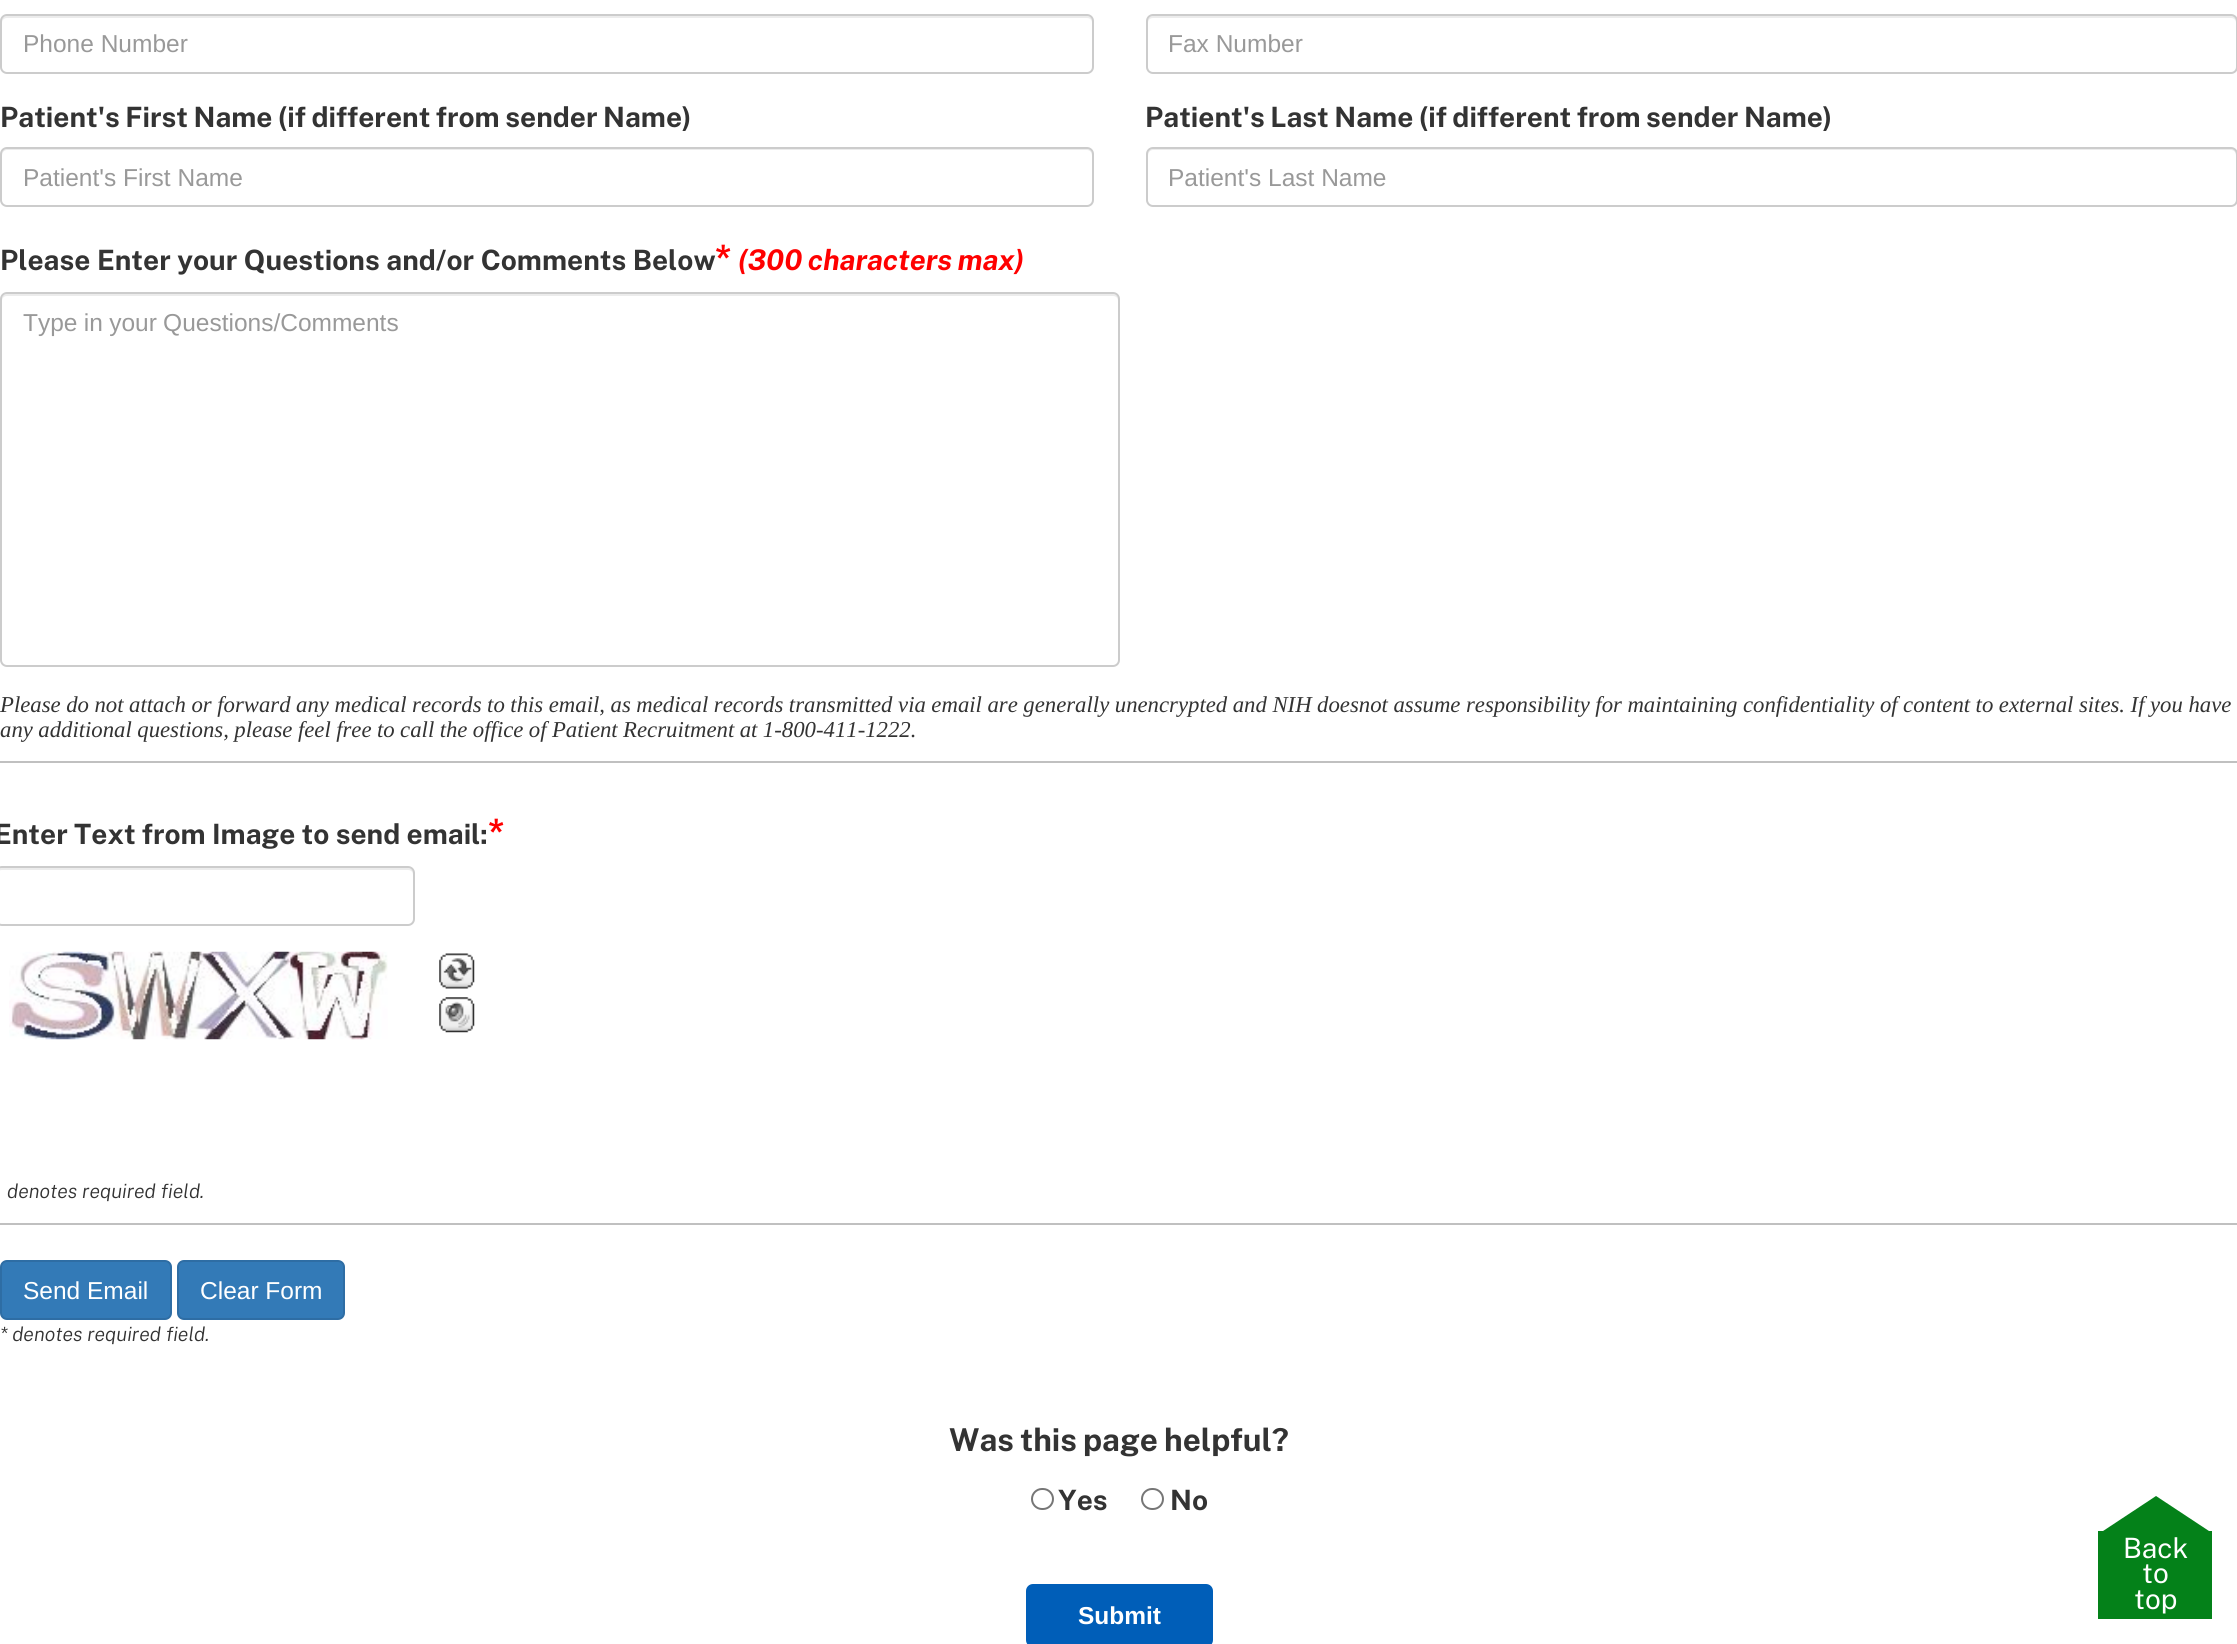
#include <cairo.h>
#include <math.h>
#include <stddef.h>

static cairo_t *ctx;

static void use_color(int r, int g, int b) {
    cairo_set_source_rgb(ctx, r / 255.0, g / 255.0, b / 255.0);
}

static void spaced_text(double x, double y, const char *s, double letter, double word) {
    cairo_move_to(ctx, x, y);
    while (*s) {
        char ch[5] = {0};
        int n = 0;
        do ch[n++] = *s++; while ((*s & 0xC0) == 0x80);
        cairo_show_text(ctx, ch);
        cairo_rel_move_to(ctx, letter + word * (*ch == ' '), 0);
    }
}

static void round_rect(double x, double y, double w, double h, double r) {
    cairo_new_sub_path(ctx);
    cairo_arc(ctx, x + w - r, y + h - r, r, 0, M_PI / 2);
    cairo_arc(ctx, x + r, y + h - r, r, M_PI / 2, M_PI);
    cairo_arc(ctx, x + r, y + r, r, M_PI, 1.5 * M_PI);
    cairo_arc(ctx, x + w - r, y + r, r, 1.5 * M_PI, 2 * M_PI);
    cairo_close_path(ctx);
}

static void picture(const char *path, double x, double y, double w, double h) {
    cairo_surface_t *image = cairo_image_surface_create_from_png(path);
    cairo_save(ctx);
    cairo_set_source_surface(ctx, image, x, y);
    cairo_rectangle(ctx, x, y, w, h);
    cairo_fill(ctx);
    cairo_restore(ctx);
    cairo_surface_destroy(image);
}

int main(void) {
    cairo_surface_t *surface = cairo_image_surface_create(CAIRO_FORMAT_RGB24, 2237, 1644);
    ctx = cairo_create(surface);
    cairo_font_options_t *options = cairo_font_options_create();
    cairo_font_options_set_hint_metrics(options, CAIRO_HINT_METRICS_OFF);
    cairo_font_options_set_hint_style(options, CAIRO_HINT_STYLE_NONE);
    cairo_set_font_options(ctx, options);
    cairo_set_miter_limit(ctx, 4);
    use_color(255, 255, 255);
    cairo_paint(ctx);
    use_color(236, 236, 236);
    cairo_new_path(ctx);
    cairo_move_to(ctx, 7, 18);
    cairo_line_to(ctx, 1087, 18);
    cairo_curve_to(ctx, 1090, 18, 1092, 20, 1092, 23);
    cairo_line_to(ctx, 1092, 21);
    cairo_curve_to(ctx, 1092, 18, 1090, 16, 1087, 16);
    cairo_line_to(ctx, 7, 16);
    cairo_curve_to(ctx, 4, 16, 2, 18, 2, 21);
    cairo_line_to(ctx, 2, 23);
    cairo_curve_to(ctx, 2, 20, 4, 18, 7, 18);
    cairo_close_path(ctx);
    cairo_fill(ctx);
    round_rect(1, 15, 1092, 58, 6);
    use_color(204, 204, 204);
    cairo_stroke(ctx);
    cairo_select_font_face(ctx, "Liberation Sans", CAIRO_FONT_SLANT_NORMAL, CAIRO_FONT_WEIGHT_NORMAL);
    cairo_set_font_size(ctx, 24.5);
    use_color(153, 153, 153);
    cairo_move_to(ctx, 23, 52);
    cairo_show_text(ctx, "Phone Number");
    use_color(236, 236, 236);
    cairo_new_path(ctx);
    cairo_move_to(ctx, 1153, 18);
    cairo_line_to(ctx, 2231, 18);
    cairo_curve_to(ctx, 2234, 18, 2236, 20, 2236, 23);
    cairo_line_to(ctx, 2236, 68);
    cairo_line_to(ctx, 2236, 71);
    cairo_curve_to(ctx, 2236, 70, 2237, 68, 2237, 67);
    cairo_line_to(ctx, 2237, 21);
    cairo_curve_to(ctx, 2237, 18, 2235, 16, 2232, 16);
    cairo_line_to(ctx, 1153, 16);
    cairo_curve_to(ctx, 1150, 16, 1148, 18, 1148, 21);
    cairo_line_to(ctx, 1148, 23);
    cairo_curve_to(ctx, 1148, 20, 1150, 18, 1153, 18);
    cairo_close_path(ctx);
    cairo_fill(ctx);
    round_rect(1147, 15, 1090, 58, 6);
    use_color(204, 204, 204);
    cairo_stroke(ctx);
    use_color(153, 153, 153);
    cairo_move_to(ctx, 1168, 52);
    cairo_show_text(ctx, "Fax Number");
    cairo_select_font_face(ctx, "Public Sans", CAIRO_FONT_SLANT_NORMAL, CAIRO_FONT_WEIGHT_BOLD);
    cairo_set_font_size(ctx, 28);
    use_color(51, 51, 51);
    spaced_text(0, 127, "Patient's First Name (if different from sender Name)", 0, -0.75);
    use_color(236, 236, 236);
    cairo_new_path(ctx);
    cairo_move_to(ctx, 7, 150);
    cairo_line_to(ctx, 1087, 150);
    cairo_curve_to(ctx, 1090, 150, 1092, 153, 1092, 156);
    cairo_line_to(ctx, 1092, 154);
    cairo_curve_to(ctx, 1092, 151, 1090, 149, 1087, 149);
    cairo_line_to(ctx, 7, 149);
    cairo_curve_to(ctx, 4, 149, 2, 151, 2, 154);
    cairo_line_to(ctx, 2, 156);
    cairo_curve_to(ctx, 2, 153, 4, 150, 7, 150);
    cairo_close_path(ctx);
    cairo_fill(ctx);
    round_rect(1, 148, 1092, 58, 6);
    use_color(204, 204, 204);
    cairo_stroke(ctx);
    cairo_select_font_face(ctx, "Liberation Sans", CAIRO_FONT_SLANT_NORMAL, CAIRO_FONT_WEIGHT_NORMAL);
    cairo_set_font_size(ctx, 24.5);
    use_color(153, 153, 153);
    cairo_move_to(ctx, 23, 186);
    cairo_show_text(ctx, "Patient's First Name");
    cairo_select_font_face(ctx, "Public Sans", CAIRO_FONT_SLANT_NORMAL, CAIRO_FONT_WEIGHT_BOLD);
    cairo_set_font_size(ctx, 28);
    use_color(51, 51, 51);
    spaced_text(1145, 127, "Patient's Last Name (if different from sender Name)", 0, -0.75);
    use_color(236, 236, 236);
    cairo_new_path(ctx);
    cairo_move_to(ctx, 1153, 150);
    cairo_line_to(ctx, 2231, 150);
    cairo_curve_to(ctx, 2234, 150, 2236, 153, 2236, 156);
    cairo_line_to(ctx, 2236, 201);
    cairo_line_to(ctx, 2235, 204);
    cairo_curve_to(ctx, 2236, 203, 2237, 201, 2237, 200);
    cairo_line_to(ctx, 2237, 154);
    cairo_curve_to(ctx, 2237, 151, 2235, 149, 2232, 149);
    cairo_line_to(ctx, 1153, 149);
    cairo_curve_to(ctx, 1150, 149, 1148, 151, 1148, 154);
    cairo_line_to(ctx, 1148, 156);
    cairo_curve_to(ctx, 1148, 153, 1150, 150, 1153, 150);
    cairo_close_path(ctx);
    cairo_fill(ctx);
    round_rect(1147, 148, 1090, 58, 6);
    use_color(204, 204, 204);
    cairo_stroke(ctx);
    cairo_select_font_face(ctx, "Liberation Sans", CAIRO_FONT_SLANT_NORMAL, CAIRO_FONT_WEIGHT_NORMAL);
    cairo_set_font_size(ctx, 24.5);
    use_color(153, 153, 153);
    cairo_move_to(ctx, 1168, 186);
    cairo_show_text(ctx, "Patient's Last Name");
    cairo_select_font_face(ctx, "Public Sans", CAIRO_FONT_SLANT_NORMAL, CAIRO_FONT_WEIGHT_BOLD);
    cairo_set_font_size(ctx, 28);
    use_color(51, 51, 51);
    spaced_text(0, 270, "Please Enter your Questions and/or Comments Below", 0, 0.25);
    cairo_set_font_size(ctx, 35);
    use_color(255, 0, 0);
    cairo_move_to(ctx, 715, 270);
    cairo_show_text(ctx, "*");
    cairo_select_font_face(ctx, "Public Sans", CAIRO_FONT_SLANT_ITALIC, CAIRO_FONT_WEIGHT_BOLD);
    cairo_set_font_size(ctx, 28.5);
    spaced_text(738, 270, "(300 characters max)", 0, -1);
    use_color(236, 236, 236);
    cairo_new_path(ctx);
    cairo_move_to(ctx, 7, 296);
    cairo_line_to(ctx, 1113, 296);
    cairo_curve_to(ctx, 1116, 296, 1118, 298, 1118, 301);
    cairo_line_to(ctx, 1118, 299);
    cairo_curve_to(ctx, 1118, 296, 1116, 294, 1113, 294);
    cairo_line_to(ctx, 7, 294);
    cairo_curve_to(ctx, 4, 294, 2, 296, 2, 299);
    cairo_line_to(ctx, 2, 301);
    cairo_curve_to(ctx, 2, 298, 4, 296, 7, 296);
    cairo_close_path(ctx);
    cairo_fill(ctx);
    round_rect(1, 293, 1118, 373, 6);
    use_color(204, 204, 204);
    cairo_stroke(ctx);
    cairo_select_font_face(ctx, "Liberation Sans", CAIRO_FONT_SLANT_NORMAL, CAIRO_FONT_WEIGHT_NORMAL);
    cairo_set_font_size(ctx, 24.5);
    use_color(153, 153, 153);
    spaced_text(23, 331, "Type in your Questions/Comments", 0, -0.5);
    cairo_select_font_face(ctx, "Liberation Serif", CAIRO_FONT_SLANT_ITALIC, CAIRO_FONT_WEIGHT_NORMAL);
    cairo_set_font_size(ctx, 22.75);
    use_color(51, 51, 51);
    spaced_text(0, 712, "Please do not attach or forward any medical records to this email, as medical records transmitted via email are generally unencrypted and NIH doesnot assume responsibility for maintaining confidentiality of content to external sites. If you have", 0, -0.15);
    spaced_text(0, 737, "any additional questions, please feel free to call the office of Patient Recruitment at 1-800-411-1222.", 0, -0.25);
    cairo_rectangle(ctx, -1, 762, 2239, 462);
    use_color(192, 192, 192);
    cairo_stroke(ctx);
    cairo_select_font_face(ctx, "Public Sans", CAIRO_FONT_SLANT_NORMAL, CAIRO_FONT_WEIGHT_BOLD);
    cairo_set_font_size(ctx, 28);
    use_color(51, 51, 51);
    cairo_move_to(ctx, -6, 844);
    cairo_show_text(ctx, "Enter Text from Image to send email:");
    cairo_set_font_size(ctx, 35);
    use_color(255, 0, 0);
    cairo_move_to(ctx, 488, 844);
    cairo_show_text(ctx, "*");
    use_color(236, 236, 236);
    cairo_new_path(ctx);
    cairo_move_to(ctx, 2, 870);
    cairo_line_to(ctx, 408, 870);
    cairo_curve_to(ctx, 411, 870, 413, 872, 413, 875);
    cairo_line_to(ctx, 413, 873);
    cairo_curve_to(ctx, 413, 870, 411, 868, 408, 868);
    cairo_line_to(ctx, 2, 868);
    cairo_curve_to(ctx, 0, 868, -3, 870, -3, 872);
    cairo_curve_to(ctx, -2, 871, 0, 870, 2, 870);
    cairo_close_path(ctx);
    cairo_fill(ctx);
    round_rect(-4, 867, 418, 58, 6);
    use_color(204, 204, 204);
    cairo_stroke(ctx);
    picture("img1.png", 9, 951, 379, 89);
    picture("img2.png", 439, 953, 36, 36);
    picture("img3.png", 439, 997, 36, 36);
    cairo_select_font_face(ctx, "Public Sans Light", CAIRO_FONT_SLANT_ITALIC, CAIRO_FONT_WEIGHT_NORMAL);
    cairo_set_font_size(ctx, 19.6);
    use_color(51, 51, 51);
    cairo_move_to(ctx, 7, 1198);
    cairo_show_text(ctx, "denotes required field.");
    use_color(51, 122, 183);
    round_rect(1, 1261, 170, 58, 6);
    cairo_fill_preserve(ctx);
    use_color(46, 109, 164);
    cairo_stroke(ctx);
    cairo_select_font_face(ctx, "Liberation Sans", CAIRO_FONT_SLANT_NORMAL, CAIRO_FONT_WEIGHT_NORMAL);
    cairo_set_font_size(ctx, 24.5);
    use_color(255, 255, 255);
    cairo_move_to(ctx, 23, 1299);
    cairo_show_text(ctx, "Send Email");
    use_color(51, 122, 183);
    round_rect(178, 1261, 166, 58, 6);
    cairo_fill_preserve(ctx);
    use_color(46, 109, 164);
    cairo_stroke(ctx);
    use_color(255, 255, 255);
    cairo_move_to(ctx, 200, 1299);
    cairo_show_text(ctx, "Clear Form");
    cairo_select_font_face(ctx, "Public Sans Light", CAIRO_FONT_SLANT_ITALIC, CAIRO_FONT_WEIGHT_NORMAL);
    cairo_set_font_size(ctx, 19.6);
    use_color(51, 51, 51);
    cairo_move_to(ctx, 0, 1341);
    cairo_show_text(ctx, "* denotes required field.");
    cairo_select_font_face(ctx, "Public Sans", CAIRO_FONT_SLANT_NORMAL, CAIRO_FONT_WEIGHT_BOLD);
    cairo_set_font_size(ctx, 31.5);
    spaced_text(949, 1451, "Was this page helpful?", 0, -1);
    round_rect(1032, 1489, 21, 20, 10);
    use_color(118, 118, 118);
    cairo_stroke(ctx);
    cairo_set_font_size(ctx, 28);
    use_color(51, 51, 51);
    cairo_move_to(ctx, 1058, 1510);
    cairo_show_text(ctx, "Yes");
    round_rect(1142, 1489, 21, 20, 10);
    use_color(118, 118, 118);
    cairo_stroke(ctx);
    use_color(51, 51, 51);
    cairo_move_to(ctx, 1170, 1510);
    cairo_show_text(ctx, "No");
    use_color(0, 94, 184);
    round_rect(1026, 1584, 187, 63, 7);
    cairo_fill(ctx);
    cairo_select_font_face(ctx, "Liberation Sans", CAIRO_FONT_SLANT_NORMAL, CAIRO_FONT_WEIGHT_BOLD);
    cairo_set_font_size(ctx, 24.5);
    use_color(255, 255, 255);
    cairo_move_to(ctx, 1078, 1624);
    cairo_show_text(ctx, "Submit");
    use_color(4, 129, 25);
    cairo_rectangle(ctx, 2098, 1531, 114, 88);
    cairo_fill(ctx);
    cairo_new_path(ctx);
    cairo_move_to(ctx, 2212, 1533);
    cairo_line_to(ctx, 2100, 1533);
    cairo_line_to(ctx, 2156, 1496);
    cairo_close_path(ctx);
    cairo_fill(ctx);
    cairo_select_font_face(ctx, "Public Sans", CAIRO_FONT_SLANT_NORMAL, CAIRO_FONT_WEIGHT_NORMAL);
    cairo_set_font_size(ctx, 28);
    use_color(255, 255, 255);
    cairo_move_to(ctx, 2123, 1558);
    cairo_show_text(ctx, "Back");
    cairo_move_to(ctx, 2142, 1583);
    cairo_show_text(ctx, "to");
    cairo_move_to(ctx, 2134, 1609);
    cairo_show_text(ctx, "top");
    cairo_surface_write_to_png(surface, "result.png");
    cairo_font_options_destroy(options);
    cairo_destroy(ctx);
    cairo_surface_destroy(surface);
    return 0;
}
